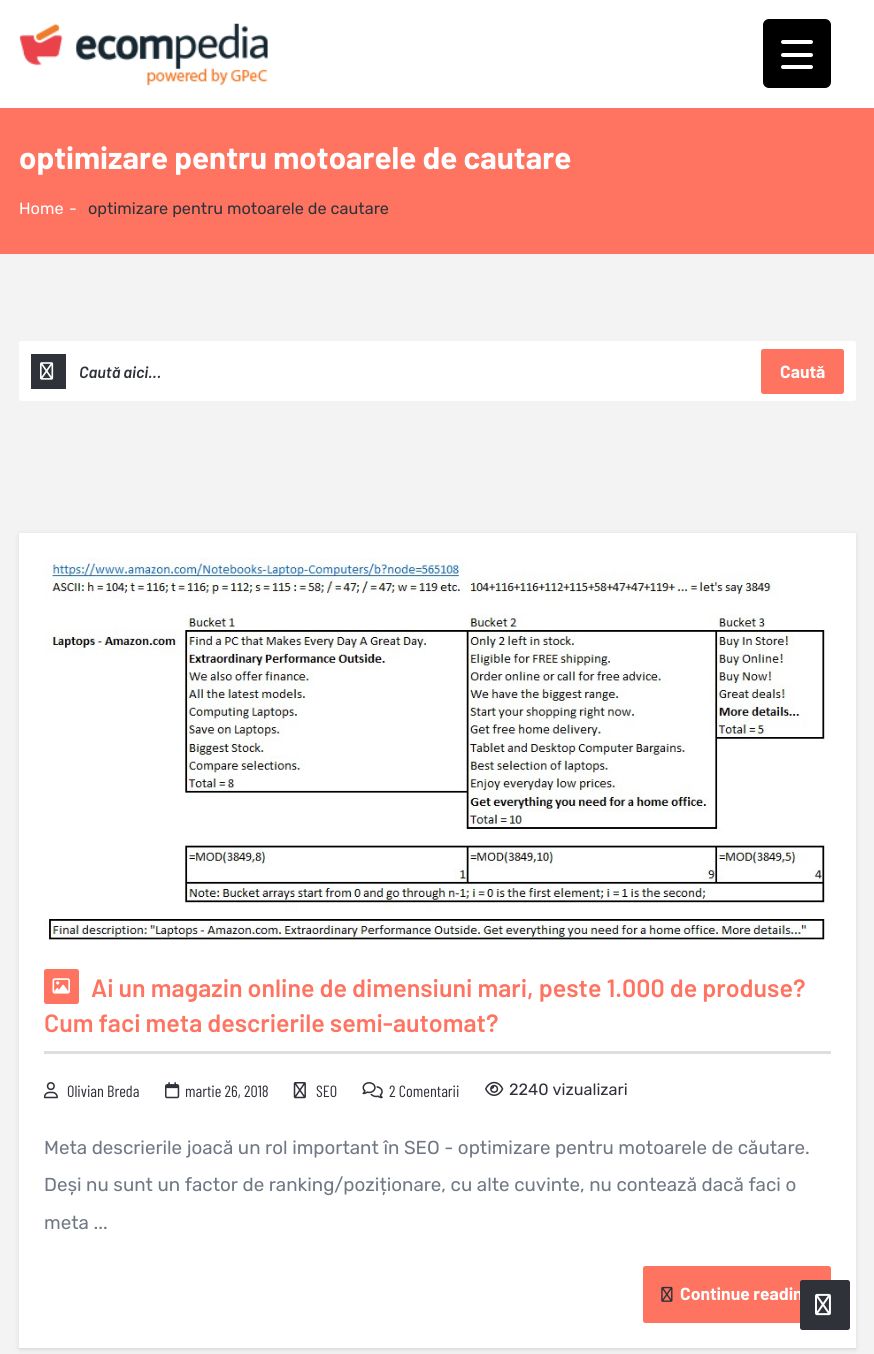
#include <cairo.h>
#include <math.h>
#include <stddef.h>

static cairo_t *ctx;

static void use_color(int r, int g, int b) {
    cairo_set_source_rgb(ctx, r / 255.0, g / 255.0, b / 255.0);
}

static void round_rect(double x, double y, double w, double h, double r) {
    cairo_new_sub_path(ctx);
    cairo_arc(ctx, x + w - r, y + h - r, r, 0, M_PI / 2);
    cairo_arc(ctx, x + r, y + h - r, r, M_PI / 2, M_PI);
    cairo_arc(ctx, x + r, y + r, r, M_PI, 1.5 * M_PI);
    cairo_arc(ctx, x + w - r, y + r, r, 1.5 * M_PI, 2 * M_PI);
    cairo_close_path(ctx);
}

static void shadow(double x, double y, double w, double h, double r, double blur, double alpha) {
    cairo_push_group_with_content(ctx, CAIRO_CONTENT_ALPHA);
    cairo_set_operator(ctx, CAIRO_OPERATOR_SOURCE);
    for (int i = 15; i >= -15 && fmin(w, h) + blur * i / 3 > 0; i -= 2) {
        double e = blur * i / 6;
        cairo_set_source_rgba(ctx, 0, 0, 0, alpha * erfc((i - 1) / 8.5) / 2);
        round_rect(x - e, y - e, w + 2 * e, h + 2 * e, fmax(0, fmin(r + e + blur * .6, fmin(w, h) / 2 + e)));
        cairo_fill(ctx);
    }
    cairo_pattern_t *soft = cairo_pop_group(ctx);
    cairo_mask(ctx, soft);
    cairo_pattern_destroy(soft);
}

static void picture(const char *path, double x, double y, double w, double h) {
    cairo_surface_t *image = cairo_image_surface_create_from_png(path);
    cairo_save(ctx);
    cairo_set_source_surface(ctx, image, x, y);
    cairo_rectangle(ctx, x, y, w, h);
    cairo_fill(ctx);
    cairo_restore(ctx);
    cairo_surface_destroy(image);
}

int main(void) {
    cairo_surface_t *surface = cairo_image_surface_create(CAIRO_FORMAT_RGB24, 874, 1354);
    ctx = cairo_create(surface);
    cairo_font_options_t *options = cairo_font_options_create();
    cairo_font_options_set_hint_metrics(options, CAIRO_HINT_METRICS_OFF);
    cairo_font_options_set_hint_style(options, CAIRO_HINT_STYLE_NONE);
    cairo_set_font_options(ctx, options);
    cairo_set_miter_limit(ctx, 4);
    use_color(243, 243, 243);
    cairo_paint(ctx);
    use_color(255, 255, 255);
    cairo_rectangle(ctx, 0, 0, 874, 108);
    cairo_fill(ctx);
    use_color(0, 0, 0);
    round_rect(763, 19, 68, 69, 6);
    cairo_fill(ctx);
    use_color(255, 255, 255);
    round_rect(781, 53, 32, 4, 2);
    cairo_fill(ctx);
    round_rect(781, 40, 32, 4, 2);
    cairo_fill(ctx);
    round_rect(781, 65, 32, 4, 2);
    cairo_fill(ctx);
    picture("img1.png", 19, 23, 249, 63);
    use_color(255, 115, 97);
    cairo_rectangle(ctx, 0, 108, 874, 146);
    cairo_fill(ctx);
    cairo_select_font_face(ctx, "Barlow", CAIRO_FONT_SLANT_NORMAL, CAIRO_FONT_WEIGHT_BOLD);
    cairo_set_font_size(ctx, 31.25);
    use_color(255, 255, 255);
    cairo_move_to(ctx, 19, 169);
    cairo_show_text(ctx, "optimizare pentru motoarele de cautare");
    cairo_select_font_face(ctx, "Rubik Light", CAIRO_FONT_SLANT_NORMAL, CAIRO_FONT_WEIGHT_NORMAL);
    cairo_set_font_size(ctx, 16.25);
    cairo_move_to(ctx, 19, 214);
    cairo_show_text(ctx, "Home");
    cairo_move_to(ctx, 69, 214);
    cairo_show_text(ctx, "-");
    use_color(47, 50, 57);
    cairo_move_to(ctx, 88, 214);
    cairo_show_text(ctx, "optimizare pentru motoarele de cautare");
    use_color(255, 255, 255);
    round_rect(19, 341, 837, 60, 2.5);
    cairo_fill(ctx);
    use_color(47, 50, 57);
    cairo_rectangle(ctx, 31, 354, 35, 35);
    cairo_fill(ctx);
    picture("img2.png", 40, 362, 14, 18);
    cairo_select_font_face(ctx, "Barlow SemiBold", CAIRO_FONT_SLANT_ITALIC, CAIRO_FONT_WEIGHT_NORMAL);
    cairo_move_to(ctx, 79, 378);
    cairo_show_text(ctx, "Caută aici...");
    use_color(255, 115, 97);
    round_rect(761, 349, 83, 45, 2.5);
    cairo_fill(ctx);
    cairo_select_font_face(ctx, "Barlow", CAIRO_FONT_SLANT_NORMAL, CAIRO_FONT_WEIGHT_BOLD);
    cairo_set_font_size(ctx, 17.5);
    use_color(255, 255, 255);
    cairo_move_to(ctx, 780, 378);
    cairo_show_text(ctx, "Caută");
    use_color(0, 0, 0);
    shadow(20, 535, 835, 814, 0, 3, 0.13);
    use_color(255, 255, 255);
    cairo_rectangle(ctx, 19, 533, 837, 815);
    cairo_fill(ctx);
    use_color(222, 222, 222);
    cairo_rectangle(ctx, 19, 1348, 837, 1);
    cairo_fill(ctx);
    picture("img3.png", 44, 557, 785, 383);
    cairo_rectangle(ctx, 44, 1051, 787, 3);
    cairo_fill(ctx);
    use_color(255, 115, 97);
    round_rect(44, 969, 35, 35, 2.5);
    cairo_fill(ctx);
    picture("img4.png", 52, 978, 18, 16);
    cairo_select_font_face(ctx, "Barlow SemiBold", CAIRO_FONT_SLANT_NORMAL, CAIRO_FONT_WEIGHT_NORMAL);
    cairo_set_font_size(ctx, 25);
    cairo_move_to(ctx, 91, 997);
    cairo_show_text(ctx, "Ai un magazin online de dimensiuni mari, peste 1.000 de produse?");
    cairo_move_to(ctx, 44, 1032);
    cairo_show_text(ctx, "Cum faci meta descrierile semi-automat?");
    picture("img5.png", 44, 1082, 14, 17);
    cairo_select_font_face(ctx, "Barlow Condensed", CAIRO_FONT_SLANT_NORMAL, CAIRO_FONT_WEIGHT_NORMAL);
    cairo_set_font_size(ctx, 16.25);
    use_color(47, 50, 57);
    cairo_move_to(ctx, 67, 1097);
    cairo_show_text(ctx, "Olivian Breda");
    picture("img6.png", 165, 1082, 15, 17);
    cairo_move_to(ctx, 185, 1097);
    cairo_show_text(ctx, "martie 26, 2018");
    picture("img7.png", 293, 1082, 13, 17);
    cairo_move_to(ctx, 316, 1097);
    cairo_show_text(ctx, "SEO");
    picture("img8.png", 362, 1082, 21, 17);
    cairo_move_to(ctx, 389, 1097);
    cairo_show_text(ctx, "2 Comentarii");
    picture("img9.png", 485, 1081, 19, 15);
    cairo_select_font_face(ctx, "Rubik Light", CAIRO_FONT_SLANT_NORMAL, CAIRO_FONT_WEIGHT_NORMAL);
    cairo_move_to(ctx, 509, 1095);
    cairo_show_text(ctx, "2240 vizualizari");
    cairo_set_font_size(ctx, 18.75);
    use_color(112, 120, 133);
    cairo_move_to(ctx, 44, 1154);
    cairo_show_text(ctx, "Meta descrierile joacă un rol important în SEO - optimizare pentru motoarele de căutare.");
    cairo_move_to(ctx, 44, 1191);
    cairo_show_text(ctx, "Deși nu sunt un factor de ranking/poziționare, cu alte cuvinte, nu contează dacă faci o");
    cairo_move_to(ctx, 44, 1229);
    cairo_show_text(ctx, "meta ...");
    use_color(255, 115, 97);
    round_rect(643, 1266, 188, 57, 2.5);
    cairo_fill(ctx);
    picture("img10.png", 661, 1286, 12, 16);
    cairo_select_font_face(ctx, "Barlow", CAIRO_FONT_SLANT_NORMAL, CAIRO_FONT_WEIGHT_BOLD);
    cairo_set_font_size(ctx, 17.5);
    use_color(255, 255, 255);
    cairo_move_to(ctx, 680, 1300);
    cairo_show_text(ctx, "Continue readin");
    use_color(47, 50, 57);
    round_rect(800, 1280, 50, 50, 2.5);
    cairo_fill(ctx);
    picture("img11.png", 815, 1293, 16, 23);
    cairo_surface_write_to_png(surface, "result.png");
    cairo_font_options_destroy(options);
    cairo_destroy(ctx);
    cairo_surface_destroy(surface);
    return 0;
}
